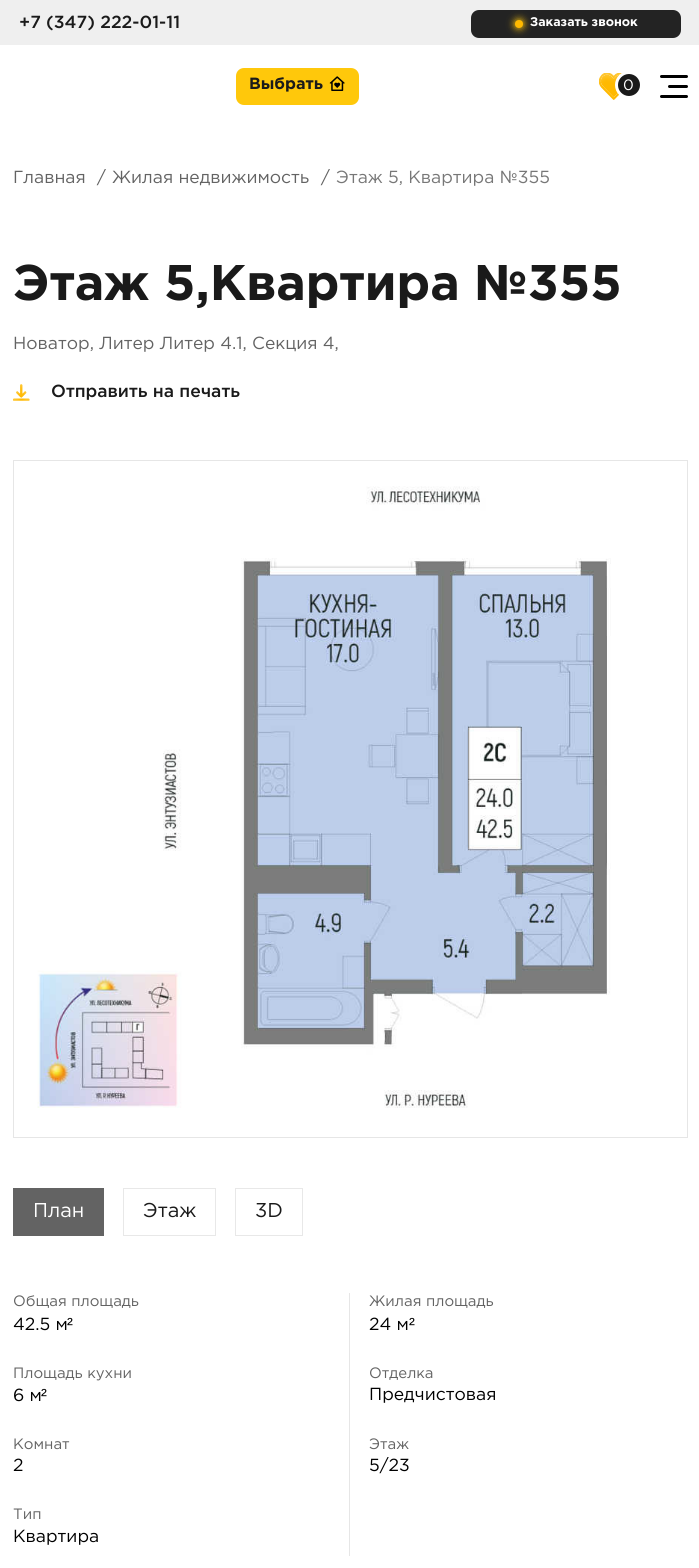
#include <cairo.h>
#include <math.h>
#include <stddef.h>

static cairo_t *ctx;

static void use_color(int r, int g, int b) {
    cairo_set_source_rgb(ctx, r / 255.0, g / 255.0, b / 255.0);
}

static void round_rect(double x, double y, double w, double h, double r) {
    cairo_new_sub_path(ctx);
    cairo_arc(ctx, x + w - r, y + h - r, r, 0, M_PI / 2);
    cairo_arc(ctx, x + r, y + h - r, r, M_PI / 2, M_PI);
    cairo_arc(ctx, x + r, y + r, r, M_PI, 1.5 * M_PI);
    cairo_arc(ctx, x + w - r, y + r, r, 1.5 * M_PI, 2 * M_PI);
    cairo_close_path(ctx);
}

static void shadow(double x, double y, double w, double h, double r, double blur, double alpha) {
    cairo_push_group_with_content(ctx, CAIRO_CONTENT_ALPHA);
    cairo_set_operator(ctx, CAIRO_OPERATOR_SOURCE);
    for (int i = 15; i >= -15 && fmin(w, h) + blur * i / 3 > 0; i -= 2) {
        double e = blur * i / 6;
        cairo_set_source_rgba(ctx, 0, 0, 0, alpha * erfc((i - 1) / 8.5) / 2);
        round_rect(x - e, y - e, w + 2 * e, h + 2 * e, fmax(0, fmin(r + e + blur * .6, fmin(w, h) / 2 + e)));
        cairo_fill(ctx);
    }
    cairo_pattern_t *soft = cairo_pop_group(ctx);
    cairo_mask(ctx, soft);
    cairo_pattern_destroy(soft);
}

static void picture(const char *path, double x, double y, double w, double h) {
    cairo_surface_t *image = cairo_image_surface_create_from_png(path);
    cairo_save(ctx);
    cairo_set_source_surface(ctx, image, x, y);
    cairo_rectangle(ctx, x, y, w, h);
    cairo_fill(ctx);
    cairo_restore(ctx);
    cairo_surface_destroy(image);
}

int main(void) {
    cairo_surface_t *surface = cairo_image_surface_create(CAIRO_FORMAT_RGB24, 699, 1568);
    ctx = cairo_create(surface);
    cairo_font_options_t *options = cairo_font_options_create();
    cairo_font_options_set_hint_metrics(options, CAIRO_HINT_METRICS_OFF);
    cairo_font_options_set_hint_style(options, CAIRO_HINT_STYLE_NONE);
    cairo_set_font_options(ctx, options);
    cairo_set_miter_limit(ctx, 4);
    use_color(255, 255, 255);
    cairo_paint(ctx);
    use_color(239, 239, 239);
    cairo_rectangle(ctx, 0, 0, 699, 45);
    cairo_fill(ctx);
    cairo_select_font_face(ctx, "Gotham Medium", CAIRO_FONT_SLANT_NORMAL, CAIRO_FONT_WEIGHT_NORMAL);
    cairo_set_font_size(ctx, 17.5);
    use_color(26, 26, 26);
    cairo_move_to(ctx, 19, 28);
    cairo_show_text(ctx, "+7 (347) 222-01-11");
    use_color(35, 35, 35);
    round_rect(471, 10, 210, 28, 8);
    cairo_fill(ctx);
    use_color(255, 200, 11);
    shadow(515, 20, 8, 8, 4, 4, 1);
    use_color(255, 185, 0);
    cairo_arc(ctx, 519, 24, 4, 0, 2 * M_PI);
    cairo_fill(ctx);
    cairo_select_font_face(ctx, "Gotham", CAIRO_FONT_SLANT_NORMAL, CAIRO_FONT_WEIGHT_BOLD);
    cairo_set_font_size(ctx, 12.5);
    use_color(255, 255, 255);
    cairo_move_to(ctx, 530, 26);
    cairo_show_text(ctx, "Заказать звонок");
    use_color(255, 200, 11);
    round_rect(236, 68, 123, 37, 8);
    cairo_fill(ctx);
    cairo_set_font_size(ctx, 16.25);
    use_color(26, 26, 26);
    cairo_move_to(ctx, 249, 89);
    cairo_show_text(ctx, "Выбрать");
    picture("img1.png", 329, 76, 16, 15);
    picture("img2.png", 599, 73, 23, 27);
    cairo_arc(ctx, 629, 85, 12.5, 0, 2 * M_PI);
    cairo_fill_preserve(ctx);
    use_color(255, 255, 255);
    cairo_set_line_width(ctx, 3);
    cairo_stroke(ctx);
    cairo_select_font_face(ctx, "Gotham", CAIRO_FONT_SLANT_NORMAL, CAIRO_FONT_WEIGHT_NORMAL);
    cairo_set_font_size(ctx, 15);
    cairo_move_to(ctx, 623, 90);
    cairo_show_text(ctx, "0");
    use_color(0, 0, 0);
    round_rect(660, 75, 28, 3, 1.5);
    cairo_fill(ctx);
    round_rect(668, 85, 20, 3, 1.5);
    cairo_fill(ctx);
    round_rect(660, 95, 28, 3, 1.5);
    cairo_fill(ctx);
    cairo_set_font_size(ctx, 17.5);
    use_color(99, 99, 99);
    cairo_move_to(ctx, 13, 183);
    cairo_show_text(ctx, "Главная");
    cairo_move_to(ctx, 97, 183);
    cairo_show_text(ctx, "/");
    cairo_move_to(ctx, 112, 183);
    cairo_show_text(ctx, "Жилая недвижимость");
    cairo_move_to(ctx, 321, 183);
    cairo_show_text(ctx, "/");
    use_color(119, 119, 119);
    cairo_move_to(ctx, 336, 183);
    cairo_show_text(ctx, "Этаж 5, Квартира №355");
    cairo_select_font_face(ctx, "Gotham", CAIRO_FONT_SLANT_NORMAL, CAIRO_FONT_WEIGHT_BOLD);
    cairo_set_font_size(ctx, 50);
    use_color(26, 26, 26);
    cairo_move_to(ctx, 13, 300);
    cairo_show_text(ctx, "Этаж 5,Квартира №355");
    cairo_select_font_face(ctx, "Gotham", CAIRO_FONT_SLANT_NORMAL, CAIRO_FONT_WEIGHT_NORMAL);
    cairo_set_font_size(ctx, 17.5);
    use_color(99, 99, 99);
    cairo_move_to(ctx, 13, 349);
    cairo_show_text(ctx, "Новатор, Литер Литер 4.1, Секция 4,");
    picture("img3.png", 13, 384, 17, 17);
    cairo_select_font_face(ctx, "Gotham Medium", CAIRO_FONT_SLANT_NORMAL, CAIRO_FONT_WEIGHT_NORMAL);
    use_color(26, 26, 26);
    cairo_move_to(ctx, 51, 397);
    cairo_show_text(ctx, "Отправить на печать");
    cairo_rectangle(ctx, 13.5, 460.5, 674, 677);
    use_color(230, 230, 230);
    cairo_set_line_width(ctx, 1);
    cairo_stroke(ctx);
    picture("img4.png", 37, 486, 574, 622);
    use_color(99, 99, 99);
    cairo_rectangle(ctx, 13, 1188, 91, 48);
    cairo_fill(ctx);
    cairo_select_font_face(ctx, "Gotham", CAIRO_FONT_SLANT_NORMAL, CAIRO_FONT_WEIGHT_NORMAL);
    cairo_set_font_size(ctx, 20);
    use_color(255, 255, 255);
    cairo_move_to(ctx, 33, 1217);
    cairo_show_text(ctx, "План");
    cairo_rectangle(ctx, 123.5, 1188.5, 92, 47);
    use_color(232, 232, 232);
    cairo_stroke(ctx);
    use_color(26, 26, 26);
    cairo_move_to(ctx, 143, 1217);
    cairo_show_text(ctx, "Этаж");
    cairo_rectangle(ctx, 235.5, 1188.5, 67, 47);
    use_color(232, 232, 232);
    cairo_stroke(ctx);
    use_color(26, 26, 26);
    cairo_move_to(ctx, 255, 1217);
    cairo_show_text(ctx, "3D");
    use_color(230, 230, 230);
    cairo_rectangle(ctx, 349, 1293, 1, 263);
    cairo_fill(ctx);
    cairo_set_font_size(ctx, 15);
    use_color(99, 99, 99);
    cairo_move_to(ctx, 13, 1306);
    cairo_show_text(ctx, "Общая площадь");
    cairo_set_font_size(ctx, 17.5);
    use_color(0, 0, 0);
    cairo_move_to(ctx, 13, 1330);
    cairo_show_text(ctx, "42.5 м");
    cairo_select_font_face(ctx, "Liberation Sans", CAIRO_FONT_SLANT_NORMAL, CAIRO_FONT_WEIGHT_NORMAL);
    cairo_move_to(ctx, 67, 1330);
    cairo_show_text(ctx, "²");
    cairo_select_font_face(ctx, "Gotham", CAIRO_FONT_SLANT_NORMAL, CAIRO_FONT_WEIGHT_NORMAL);
    cairo_set_font_size(ctx, 15);
    use_color(99, 99, 99);
    cairo_move_to(ctx, 369, 1306);
    cairo_show_text(ctx, "Жилая площадь");
    cairo_set_font_size(ctx, 17.5);
    use_color(0, 0, 0);
    cairo_move_to(ctx, 369, 1330);
    cairo_show_text(ctx, "24 м");
    cairo_select_font_face(ctx, "Liberation Sans", CAIRO_FONT_SLANT_NORMAL, CAIRO_FONT_WEIGHT_NORMAL);
    cairo_move_to(ctx, 409, 1330);
    cairo_show_text(ctx, "²");
    cairo_select_font_face(ctx, "Gotham", CAIRO_FONT_SLANT_NORMAL, CAIRO_FONT_WEIGHT_NORMAL);
    cairo_set_font_size(ctx, 15);
    use_color(99, 99, 99);
    cairo_move_to(ctx, 13, 1378);
    cairo_show_text(ctx, "Площадь кухни");
    cairo_set_font_size(ctx, 17.5);
    use_color(0, 0, 0);
    cairo_move_to(ctx, 13, 1401);
    cairo_show_text(ctx, "6 м");
    cairo_select_font_face(ctx, "Liberation Sans", CAIRO_FONT_SLANT_NORMAL, CAIRO_FONT_WEIGHT_NORMAL);
    cairo_move_to(ctx, 41, 1401);
    cairo_show_text(ctx, "²");
    cairo_select_font_face(ctx, "Gotham", CAIRO_FONT_SLANT_NORMAL, CAIRO_FONT_WEIGHT_NORMAL);
    cairo_set_font_size(ctx, 15);
    use_color(99, 99, 99);
    cairo_move_to(ctx, 369, 1378);
    cairo_show_text(ctx, "Отделка");
    cairo_set_font_size(ctx, 17.5);
    use_color(0, 0, 0);
    cairo_move_to(ctx, 369, 1400);
    cairo_show_text(ctx, "Предчистовая");
    cairo_set_font_size(ctx, 15);
    use_color(99, 99, 99);
    cairo_move_to(ctx, 13, 1449);
    cairo_show_text(ctx, "Комнат");
    cairo_set_font_size(ctx, 17.5);
    use_color(0, 0, 0);
    cairo_move_to(ctx, 13, 1471);
    cairo_show_text(ctx, "2");
    cairo_set_font_size(ctx, 15);
    use_color(99, 99, 99);
    cairo_move_to(ctx, 369, 1449);
    cairo_show_text(ctx, "Этаж");
    cairo_set_font_size(ctx, 17.5);
    use_color(0, 0, 0);
    cairo_move_to(ctx, 369, 1471);
    cairo_show_text(ctx, "5/23");
    cairo_set_font_size(ctx, 15);
    use_color(99, 99, 99);
    cairo_move_to(ctx, 13, 1519);
    cairo_show_text(ctx, "Тип");
    cairo_set_font_size(ctx, 17.5);
    use_color(0, 0, 0);
    cairo_move_to(ctx, 13, 1542);
    cairo_show_text(ctx, "Квартира");
    cairo_surface_write_to_png(surface, "result.png");
    cairo_font_options_destroy(options);
    cairo_destroy(ctx);
    cairo_surface_destroy(surface);
    return 0;
}
